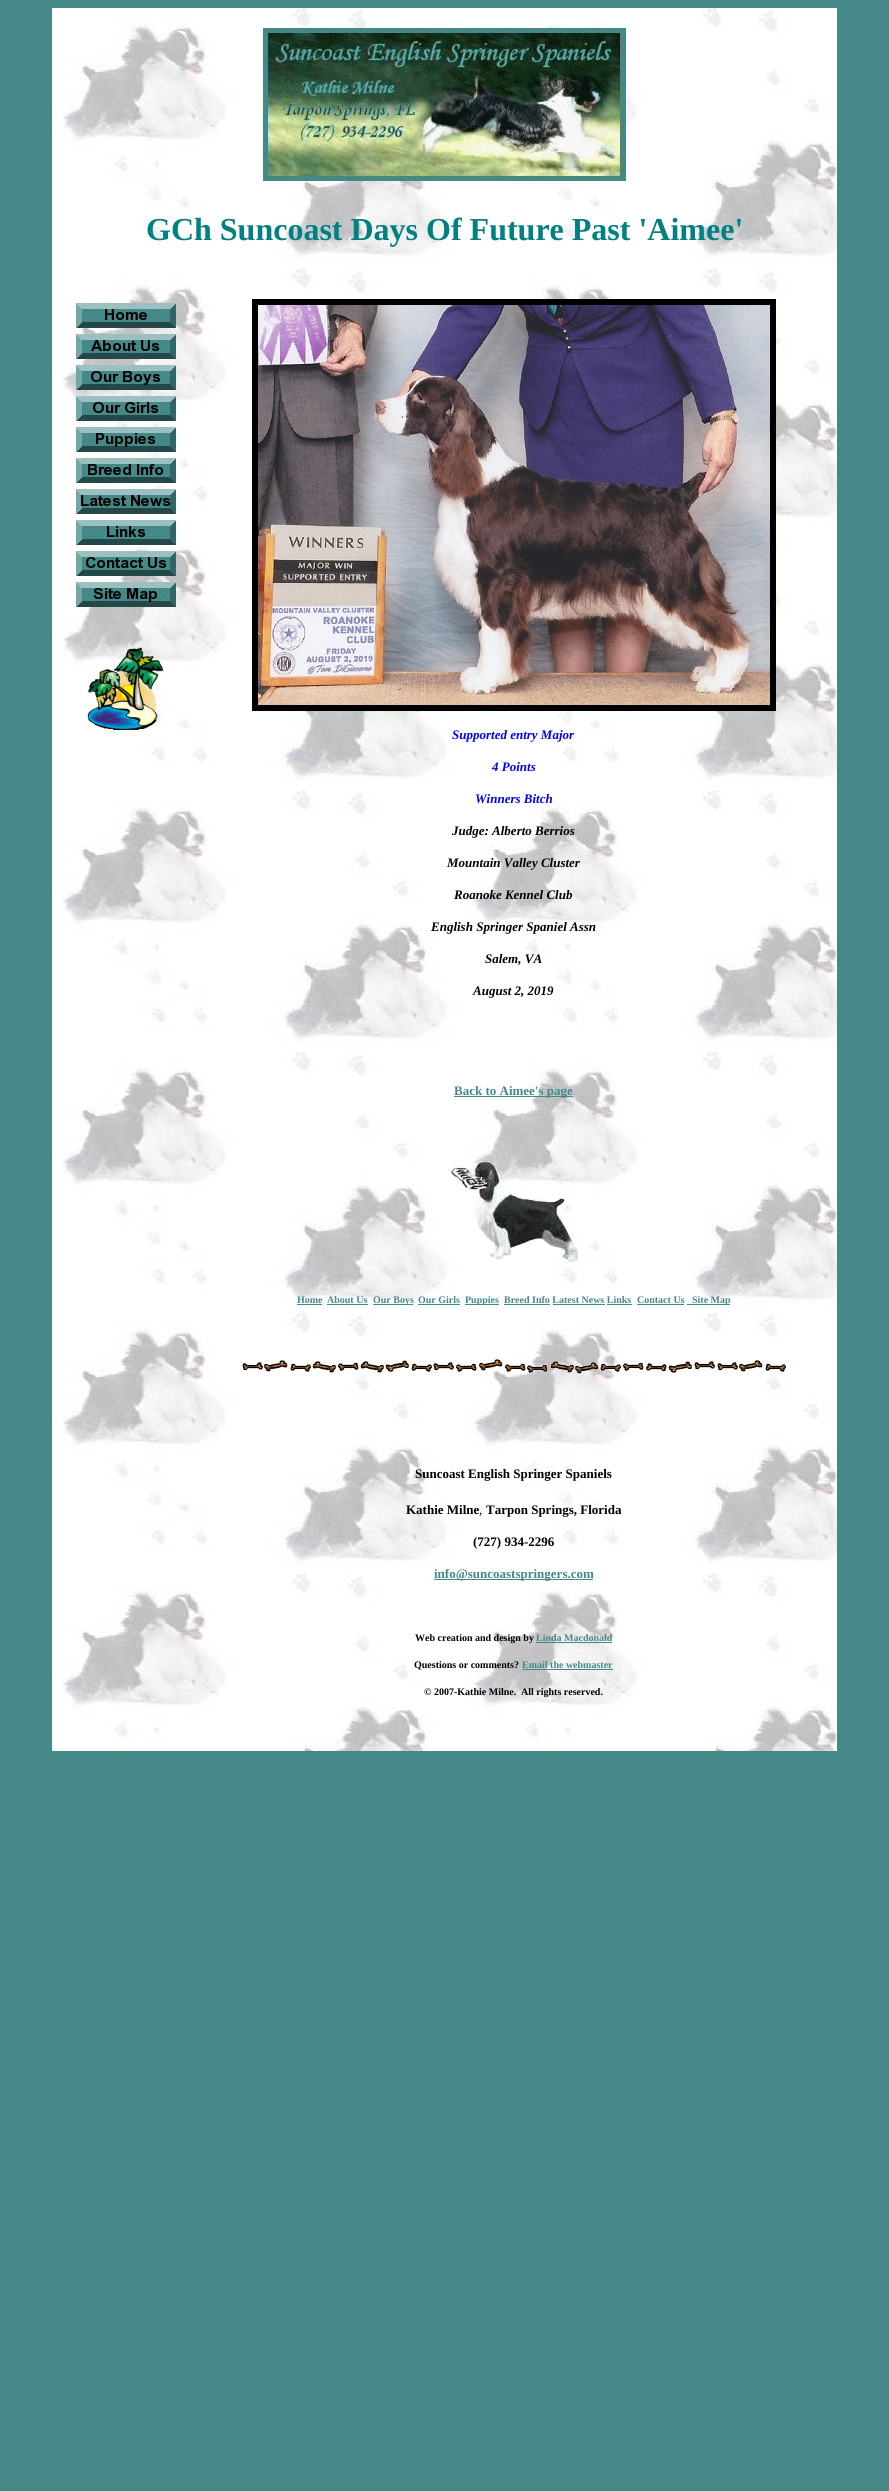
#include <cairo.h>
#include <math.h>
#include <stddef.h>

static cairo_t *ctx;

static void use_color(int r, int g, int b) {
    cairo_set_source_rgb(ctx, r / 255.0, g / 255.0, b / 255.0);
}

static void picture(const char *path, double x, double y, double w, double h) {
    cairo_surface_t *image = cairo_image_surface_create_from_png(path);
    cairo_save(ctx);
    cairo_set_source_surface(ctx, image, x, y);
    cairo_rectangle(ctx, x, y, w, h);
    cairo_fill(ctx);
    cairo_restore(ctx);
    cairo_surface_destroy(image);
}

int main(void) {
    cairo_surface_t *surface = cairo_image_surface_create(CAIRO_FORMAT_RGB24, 889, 2491);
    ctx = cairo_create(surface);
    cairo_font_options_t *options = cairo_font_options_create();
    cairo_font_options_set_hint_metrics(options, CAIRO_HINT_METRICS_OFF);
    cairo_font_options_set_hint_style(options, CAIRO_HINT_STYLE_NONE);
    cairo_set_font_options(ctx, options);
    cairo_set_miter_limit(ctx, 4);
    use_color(68, 136, 136);
    cairo_paint(ctx);
    picture("img1.png", 52, 8, 785, 1743);
    picture("img2.png", 263, 28, 363, 153);
    cairo_select_font_face(ctx, "Liberation Serif", CAIRO_FONT_SLANT_NORMAL, CAIRO_FONT_WEIGHT_BOLD);
    cairo_set_font_size(ctx, 32);
    use_color(0, 128, 128);
    cairo_move_to(ctx, 146, 240);
    cairo_show_text(ctx, "GCh Suncoast Days Of Future Past 'Aimee'");
    picture("img3.png", 76, 303, 100, 25);
    picture("img4.png", 76, 334, 100, 25);
    picture("img5.png", 76, 365, 100, 25);
    picture("img6.png", 76, 396, 100, 25);
    picture("img7.png", 76, 427, 100, 25);
    picture("img8.png", 76, 458, 100, 25);
    picture("img9.png", 76, 489, 100, 25);
    picture("img10.png", 76, 520, 100, 25);
    picture("img11.png", 76, 551, 100, 25);
    picture("img12.png", 76, 582, 100, 25);
    picture("img13.png", 87, 647, 77, 85);
    cairo_rectangle(ctx, 255, 302, 518, 406);
    use_color(0, 0, 0);
    cairo_set_line_width(ctx, 6);
    cairo_stroke(ctx);
    picture("img14.png", 258, 305, 512, 400);
    cairo_select_font_face(ctx, "Liberation Serif", CAIRO_FONT_SLANT_ITALIC, CAIRO_FONT_WEIGHT_BOLD);
    cairo_set_font_size(ctx, 13);
    use_color(0, 0, 255);
    cairo_move_to(ctx, 452, 739);
    cairo_show_text(ctx, "Supported entry Major");
    cairo_move_to(ctx, 492, 771);
    cairo_show_text(ctx, "4 Points");
    cairo_move_to(ctx, 475, 803);
    cairo_show_text(ctx, "Winners Bitch");
    use_color(0, 0, 0);
    cairo_move_to(ctx, 452, 835);
    cairo_show_text(ctx, "Judge: Alberto Berrios");
    cairo_move_to(ctx, 447, 867);
    cairo_show_text(ctx, "Mountain Valley Cluster");
    cairo_move_to(ctx, 454, 899);
    cairo_show_text(ctx, "Roanoke Kennel Club");
    cairo_move_to(ctx, 431, 931);
    cairo_show_text(ctx, "English Springer Spaniel Assn");
    cairo_move_to(ctx, 485, 963);
    cairo_show_text(ctx, "Salem, VA");
    cairo_move_to(ctx, 473, 995);
    cairo_show_text(ctx, "August 2, 2019");
    use_color(68, 136, 136);
    cairo_rectangle(ctx, 454, 1096, 119, 1);
    cairo_fill(ctx);
    cairo_select_font_face(ctx, "Liberation Serif", CAIRO_FONT_SLANT_NORMAL, CAIRO_FONT_WEIGHT_BOLD);
    cairo_move_to(ctx, 454, 1095);
    cairo_show_text(ctx, "Back to Aimee's page");
    picture("img15.png", 451, 1161, 127, 101);
    cairo_set_font_size(ctx, 10);
    cairo_move_to(ctx, 297, 1303);
    cairo_show_text(ctx, "Home");
    cairo_rectangle(ctx, 297, 1304, 25, 1);
    cairo_fill(ctx);
    cairo_move_to(ctx, 327, 1303);
    cairo_show_text(ctx, "About Us");
    cairo_rectangle(ctx, 327, 1304, 41, 1);
    cairo_fill(ctx);
    cairo_rectangle(ctx, 373, 1304, 40, 1);
    cairo_fill(ctx);
    cairo_move_to(ctx, 373, 1303);
    cairo_show_text(ctx, "Our Boys");
    cairo_move_to(ctx, 418, 1303);
    cairo_show_text(ctx, "Our Girls");
    cairo_rectangle(ctx, 418, 1304, 42, 1);
    cairo_fill(ctx);
    cairo_rectangle(ctx, 465, 1304, 34, 1);
    cairo_fill(ctx);
    cairo_move_to(ctx, 465, 1303);
    cairo_show_text(ctx, "Puppies");
    cairo_move_to(ctx, 504, 1303);
    cairo_show_text(ctx, "Breed Info Latest News Links");
    cairo_rectangle(ctx, 504, 1304, 46, 1);
    cairo_fill(ctx);
    cairo_rectangle(ctx, 553, 1304, 52, 1);
    cairo_fill(ctx);
    cairo_rectangle(ctx, 607, 1304, 25, 1);
    cairo_fill(ctx);
    cairo_move_to(ctx, 637, 1303);
    cairo_show_text(ctx, "Contact Us");
    cairo_rectangle(ctx, 637, 1304, 47, 1);
    cairo_fill(ctx);
    cairo_rectangle(ctx, 687, 1304, 43, 1);
    cairo_fill(ctx);
    cairo_move_to(ctx, 692, 1303);
    cairo_show_text(ctx, "Site Map");
    picture("img16.png", 242, 1359, 544, 15);
    cairo_set_font_size(ctx, 13);
    use_color(0, 0, 0);
    cairo_move_to(ctx, 415, 1478);
    cairo_show_text(ctx, "Suncoast English Springer Spaniels");
    cairo_move_to(ctx, 406, 1514);
    cairo_show_text(ctx, "Kathie Milne");
    cairo_select_font_face(ctx, "Liberation Serif", CAIRO_FONT_SLANT_NORMAL, CAIRO_FONT_WEIGHT_NORMAL);
    cairo_move_to(ctx, 479, 1514);
    cairo_show_text(ctx, ",");
    cairo_select_font_face(ctx, "Liberation Serif", CAIRO_FONT_SLANT_NORMAL, CAIRO_FONT_WEIGHT_BOLD);
    cairo_move_to(ctx, 486, 1514);
    cairo_show_text(ctx, "Tarpon Springs, Florida");
    cairo_move_to(ctx, 473, 1546);
    cairo_show_text(ctx, "(727) 934-2296");
    use_color(68, 136, 136);
    cairo_rectangle(ctx, 434, 1579, 159, 1);
    cairo_fill(ctx);
    cairo_move_to(ctx, 434, 1578);
    cairo_show_text(ctx, "info@suncoastspringers.com");
    cairo_set_font_size(ctx, 10);
    use_color(0, 0, 0);
    cairo_move_to(ctx, 415, 1641);
    cairo_show_text(ctx, "Web creation and design by");
    use_color(68, 136, 136);
    cairo_rectangle(ctx, 536, 1642, 76, 1);
    cairo_fill(ctx);
    cairo_move_to(ctx, 536, 1641);
    cairo_show_text(ctx, "Linda Macdonald");
    use_color(0, 0, 0);
    cairo_move_to(ctx, 414, 1668);
    cairo_show_text(ctx, "Questions or comments?");
    use_color(68, 136, 136);
    cairo_move_to(ctx, 522, 1668);
    cairo_show_text(ctx, "Email the webmaster");
    cairo_rectangle(ctx, 522, 1669, 91, 1);
    cairo_fill(ctx);
    use_color(0, 0, 0);
    cairo_move_to(ctx, 424, 1695);
    cairo_show_text(ctx, "© 2007-Kathie Milne.");
    cairo_move_to(ctx, 521, 1695);
    cairo_show_text(ctx, "All rights reserved.");
    cairo_surface_write_to_png(surface, "result.png");
    cairo_font_options_destroy(options);
    cairo_destroy(ctx);
    cairo_surface_destroy(surface);
    return 0;
}
